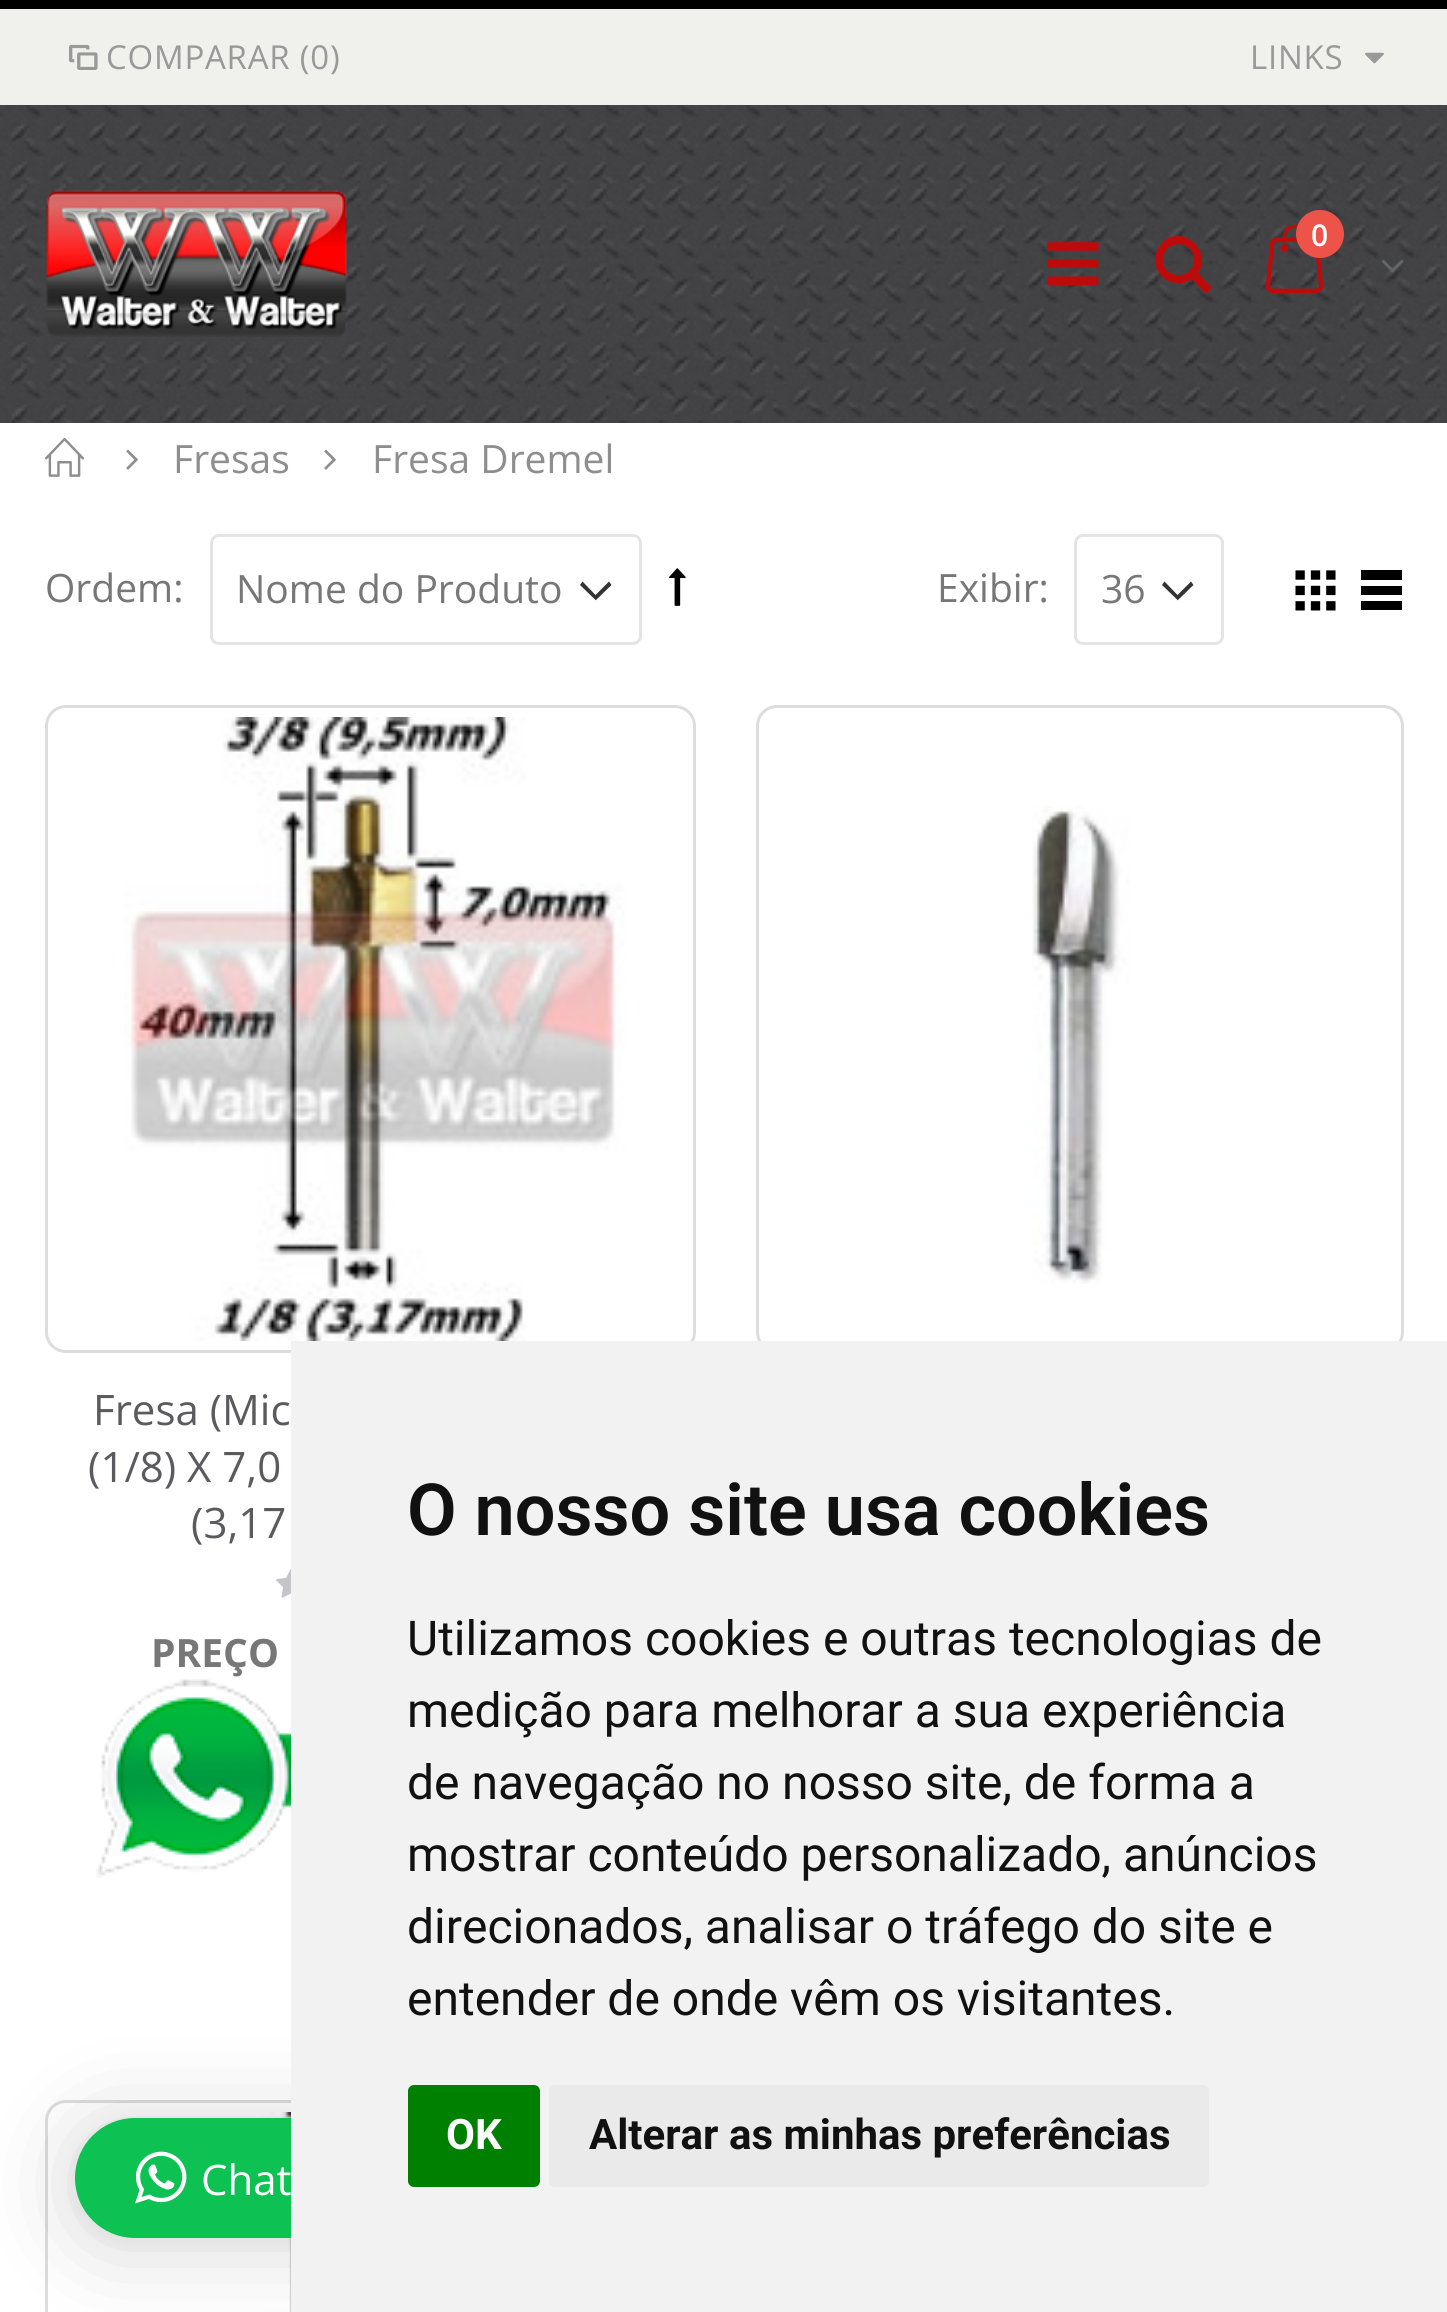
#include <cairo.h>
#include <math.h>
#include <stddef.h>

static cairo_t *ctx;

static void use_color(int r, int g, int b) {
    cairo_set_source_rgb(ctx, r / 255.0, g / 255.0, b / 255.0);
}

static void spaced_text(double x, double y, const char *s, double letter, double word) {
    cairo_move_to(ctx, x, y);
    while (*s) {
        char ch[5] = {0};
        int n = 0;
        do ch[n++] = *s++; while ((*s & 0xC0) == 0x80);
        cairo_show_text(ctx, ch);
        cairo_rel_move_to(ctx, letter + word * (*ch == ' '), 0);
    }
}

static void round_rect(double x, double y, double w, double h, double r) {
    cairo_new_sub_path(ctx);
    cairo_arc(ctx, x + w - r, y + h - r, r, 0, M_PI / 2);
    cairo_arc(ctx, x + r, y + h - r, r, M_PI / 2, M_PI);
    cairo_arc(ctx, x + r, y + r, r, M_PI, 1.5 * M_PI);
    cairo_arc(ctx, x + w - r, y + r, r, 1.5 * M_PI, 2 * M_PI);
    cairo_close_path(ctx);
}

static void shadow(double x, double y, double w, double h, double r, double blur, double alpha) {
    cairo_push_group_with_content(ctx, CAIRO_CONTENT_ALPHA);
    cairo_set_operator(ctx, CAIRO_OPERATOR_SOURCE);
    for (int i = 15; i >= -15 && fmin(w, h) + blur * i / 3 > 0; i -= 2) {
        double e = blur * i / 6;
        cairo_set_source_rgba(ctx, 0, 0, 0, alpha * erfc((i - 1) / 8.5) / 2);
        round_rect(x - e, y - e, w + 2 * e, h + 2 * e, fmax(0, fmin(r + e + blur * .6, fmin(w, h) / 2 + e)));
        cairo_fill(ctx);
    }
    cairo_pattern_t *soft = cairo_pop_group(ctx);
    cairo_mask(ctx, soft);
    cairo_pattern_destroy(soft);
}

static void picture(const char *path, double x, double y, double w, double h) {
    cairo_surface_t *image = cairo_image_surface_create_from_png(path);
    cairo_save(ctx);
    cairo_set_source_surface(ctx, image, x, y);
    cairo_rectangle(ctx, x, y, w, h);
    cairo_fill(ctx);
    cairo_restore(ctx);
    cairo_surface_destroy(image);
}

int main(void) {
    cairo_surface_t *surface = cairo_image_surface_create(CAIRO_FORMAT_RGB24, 1447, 2312);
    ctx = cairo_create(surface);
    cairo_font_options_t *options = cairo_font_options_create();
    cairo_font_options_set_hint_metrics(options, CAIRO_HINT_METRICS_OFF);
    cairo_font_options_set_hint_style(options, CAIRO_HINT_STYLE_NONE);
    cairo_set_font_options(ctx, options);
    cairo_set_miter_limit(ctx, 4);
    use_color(255, 255, 255);
    cairo_paint(ctx);
    picture("img1.png", 0, 105, 1447, 318);
    use_color(0, 0, 0);
    cairo_rectangle(ctx, 0, 0, 1447, 9);
    cairo_fill(ctx);
    use_color(240, 240, 237);
    cairo_rectangle(ctx, 0, 9, 1447, 96);
    cairo_fill(ctx);
    picture("img2.png", 69, 44, 29, 26);
    cairo_select_font_face(ctx, "Open Sans", CAIRO_FONT_SLANT_NORMAL, CAIRO_FONT_WEIGHT_NORMAL);
    cairo_set_font_size(ctx, 33);
    use_color(153, 153, 153);
    spaced_text(106, 69, "COMPARAR (0)", 0.75, 0);
    spaced_text(1250, 69, "LINKS", 0.75, 0);
    picture("img3.png", 1365, 52, 19, 12);
    picture("img4.png", 46, 190, 301, 147);
    picture("img5.png", 1047, 242, 52, 43);
    use_color(189, 11, 11);
    cairo_new_path(ctx);
    cairo_move_to(ctx, 1198, 273);
    cairo_line_to(ctx, 1212, 288);
    cairo_line_to(ctx, 1206, 294);
    cairo_line_to(ctx, 1192, 279);
    cairo_curve_to(ctx, 1180, 287, 1164, 283, 1158, 271);
    cairo_curve_to(ctx, 1154, 265, 1154, 257, 1157, 251);
    cairo_curve_to(ctx, 1158, 247, 1162, 243, 1165, 240);
    cairo_curve_to(ctx, 1186, 226, 1212, 252, 1198, 273);
    cairo_close_path(ctx);
    cairo_move_to(ctx, 1194, 260);
    cairo_curve_to(ctx, 1194, 239, 1163, 239, 1163, 260);
    cairo_curve_to(ctx, 1163, 280, 1194, 280, 1194, 260);
    cairo_close_path(ctx);
    cairo_fill(ctx);
    picture("img6.png", 1265, 224, 59, 69);
    use_color(237, 83, 72);
    cairo_arc(ctx, 1320, 234, 24, 0, 2 * M_PI);
    cairo_fill(ctx);
    cairo_select_font_face(ctx, "Open Sans SemiBold", CAIRO_FONT_SLANT_NORMAL, CAIRO_FONT_WEIGHT_NORMAL);
    cairo_set_font_size(ctx, 30);
    use_color(255, 255, 255);
    cairo_move_to(ctx, 1311, 246);
    cairo_show_text(ctx, "0");
    picture("img7.png", 1381, 260, 23, 13);
    picture("img8.png", 45, 437, 39, 40);
    picture("img9.png", 126, 449, 12, 21);
    cairo_select_font_face(ctx, "Open Sans", CAIRO_FONT_SLANT_NORMAL, CAIRO_FONT_WEIGHT_NORMAL);
    cairo_set_font_size(ctx, 39);
    use_color(142, 142, 142);
    cairo_move_to(ctx, 173, 473);
    cairo_show_text(ctx, "Fresas");
    picture("img9.png", 324, 449, 12, 21);
    cairo_move_to(ctx, 372, 473);
    cairo_show_text(ctx, "Fresa Dremel");
    use_color(119, 119, 119);
    cairo_move_to(ctx, 45, 602);
    cairo_show_text(ctx, "Ordem:");
    use_color(51, 51, 51);
    cairo_set_fill_rule(ctx, CAIRO_FILL_RULE_EVEN_ODD);
    cairo_new_path(ctx);
    cairo_move_to(ctx, 596, 600);
    cairo_line_to(ctx, 611.5, 585);
    cairo_line_to(ctx, 609, 581.5);
    cairo_line_to(ctx, 595.5, 595);
    cairo_line_to(ctx, 582.5, 581.5);
    cairo_line_to(ctx, 580, 585);
    cairo_line_to(ctx, 596, 600.5);
    cairo_close_path(ctx);
    cairo_fill(ctx);
    round_rect(211.5, 535.5, 429, 108, 7.5);
    use_color(228, 228, 228);
    cairo_set_line_width(ctx, 3);
    cairo_stroke(ctx);
    use_color(119, 119, 119);
    cairo_move_to(ctx, 236, 603);
    cairo_show_text(ctx, "Nome do Produto");
    picture("img10.png", 669, 568, 17, 38);
    cairo_move_to(ctx, 937, 602);
    cairo_show_text(ctx, "Exibir:");
    use_color(51, 51, 51);
    cairo_new_path(ctx);
    cairo_move_to(ctx, 1178, 600);
    cairo_line_to(ctx, 1193.5, 585);
    cairo_line_to(ctx, 1191, 581.5);
    cairo_line_to(ctx, 1177.5, 595);
    cairo_line_to(ctx, 1164.5, 581.5);
    cairo_line_to(ctx, 1162, 585);
    cairo_line_to(ctx, 1178, 600.5);
    cairo_close_path(ctx);
    cairo_fill(ctx);
    round_rect(1075.5, 535.5, 147, 108, 7.5);
    use_color(228, 228, 228);
    cairo_stroke(ctx);
    use_color(119, 119, 119);
    cairo_move_to(ctx, 1101, 603);
    cairo_show_text(ctx, "36");
    picture("img11.png", 1295, 570, 41, 41);
    use_color(0, 0, 0);
    cairo_set_fill_rule(ctx, CAIRO_FILL_RULE_WINDING);
    cairo_new_path(ctx);
    cairo_move_to(ctx, 1361, 570);
    cairo_line_to(ctx, 1402, 570);
    cairo_line_to(ctx, 1402, 580);
    cairo_line_to(ctx, 1361, 580);
    cairo_close_path(ctx);
    cairo_move_to(ctx, 1361, 586);
    cairo_line_to(ctx, 1402, 586);
    cairo_line_to(ctx, 1402, 595);
    cairo_line_to(ctx, 1361, 595);
    cairo_close_path(ctx);
    cairo_move_to(ctx, 1361, 601);
    cairo_line_to(ctx, 1402, 601);
    cairo_line_to(ctx, 1402, 610);
    cairo_line_to(ctx, 1361, 610);
    cairo_close_path(ctx);
    cairo_fill(ctx);
    round_rect(757.5, 706.5, 645, 645, 19.5);
    use_color(221, 221, 221);
    cairo_stroke(ctx);
    picture("img12.png", 1032, 806, 97, 478);
    round_rect(46.5, 706.5, 648, 645, 19.5);
    cairo_stroke(ctx);
    picture("img13.png", 124, 717, 501, 624);
    cairo_set_font_size(ctx, 42);
    use_color(91, 91, 95);
    cairo_move_to(ctx, 93, 1425);
    cairo_show_text(ctx, "Fresa (Mic");
    cairo_move_to(ctx, 88, 1482);
    cairo_show_text(ctx, "(1/8) X 7,0");
    cairo_move_to(ctx, 191, 1538);
    cairo_show_text(ctx, "(3,17");
    picture("img14.png", 276, 1569, 15, 29);
    cairo_select_font_face(ctx, "Open Sans", CAIRO_FONT_SLANT_NORMAL, CAIRO_FONT_WEIGHT_BOLD);
    cairo_set_font_size(ctx, 39);
    use_color(119, 119, 119);
    cairo_move_to(ctx, 151, 1667);
    cairo_show_text(ctx, "PREÇO");
    picture("img15.png", 96, 1679, 195, 199);
    round_rect(46.5, 2101.5, 648, 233, 19.5);
    use_color(221, 221, 221);
    cairo_stroke(ctx);
    picture("img16.png", 259, 2112, 32, 200);
    use_color(0, 0, 0);
    shadow(75, 2124, 276, 120, 60, 48, 0.16);
    shadow(75, 2121, 276, 120, 60, 9, 0.06);
    use_color(13, 193, 82);
    round_rect(75, 2118, 276, 120, 60);
    cairo_fill(ctx);
    cairo_select_font_face(ctx, "Open Sans", CAIRO_FONT_SLANT_NORMAL, CAIRO_FONT_WEIGHT_NORMAL);
    cairo_set_font_size(ctx, 42);
    use_color(255, 255, 255);
    cairo_move_to(ctx, 201, 2195);
    cairo_show_text(ctx, "Chat");
    use_color(242, 242, 242);
    cairo_rectangle(ctx, 291, 1341, 1156, 971);
    cairo_fill(ctx);
    cairo_select_font_face(ctx, "Roboto SemiBold", CAIRO_FONT_SLANT_NORMAL, CAIRO_FONT_WEIGHT_NORMAL);
    cairo_set_font_size(ctx, 72);
    use_color(17, 17, 17);
    cairo_move_to(ctx, 407, 1535);
    cairo_show_text(ctx, "O nosso site usa cookies");
    cairo_select_font_face(ctx, "Roboto", CAIRO_FONT_SLANT_NORMAL, CAIRO_FONT_WEIGHT_NORMAL);
    cairo_set_font_size(ctx, 48);
    cairo_move_to(ctx, 407, 1655);
    cairo_show_text(ctx, "Utilizamos cookies e outras tecnologias de");
    cairo_move_to(ctx, 407, 1727);
    cairo_show_text(ctx, "medição para melhorar a sua experiência");
    cairo_move_to(ctx, 407, 1799);
    cairo_show_text(ctx, "de navegação no nosso site, de forma a");
    cairo_move_to(ctx, 407, 1871);
    cairo_show_text(ctx, "mostrar conteúdo personalizado, anúncios");
    cairo_move_to(ctx, 407, 1943);
    cairo_show_text(ctx, "direcionados, analisar o tráfego do site e");
    cairo_move_to(ctx, 407, 2015);
    cairo_show_text(ctx, "entender de onde vêm os visitantes.");
    use_color(0, 128, 0);
    round_rect(408, 2085, 132, 102, 6);
    cairo_fill(ctx);
    cairo_select_font_face(ctx, "Roboto", CAIRO_FONT_SLANT_NORMAL, CAIRO_FONT_WEIGHT_BOLD);
    cairo_set_font_size(ctx, 42);
    use_color(255, 255, 255);
    cairo_move_to(ctx, 446, 2149);
    cairo_show_text(ctx, "OK");
    use_color(234, 234, 234);
    round_rect(549, 2085, 660, 102, 6);
    cairo_fill(ctx);
    use_color(17, 17, 17);
    cairo_move_to(ctx, 589, 2149);
    cairo_show_text(ctx, "Alterar as minhas preferências");
    picture("img17.png", 135, 2151, 52, 53);
    cairo_surface_write_to_png(surface, "result.png");
    cairo_font_options_destroy(options);
    cairo_destroy(ctx);
    cairo_surface_destroy(surface);
    return 0;
}
